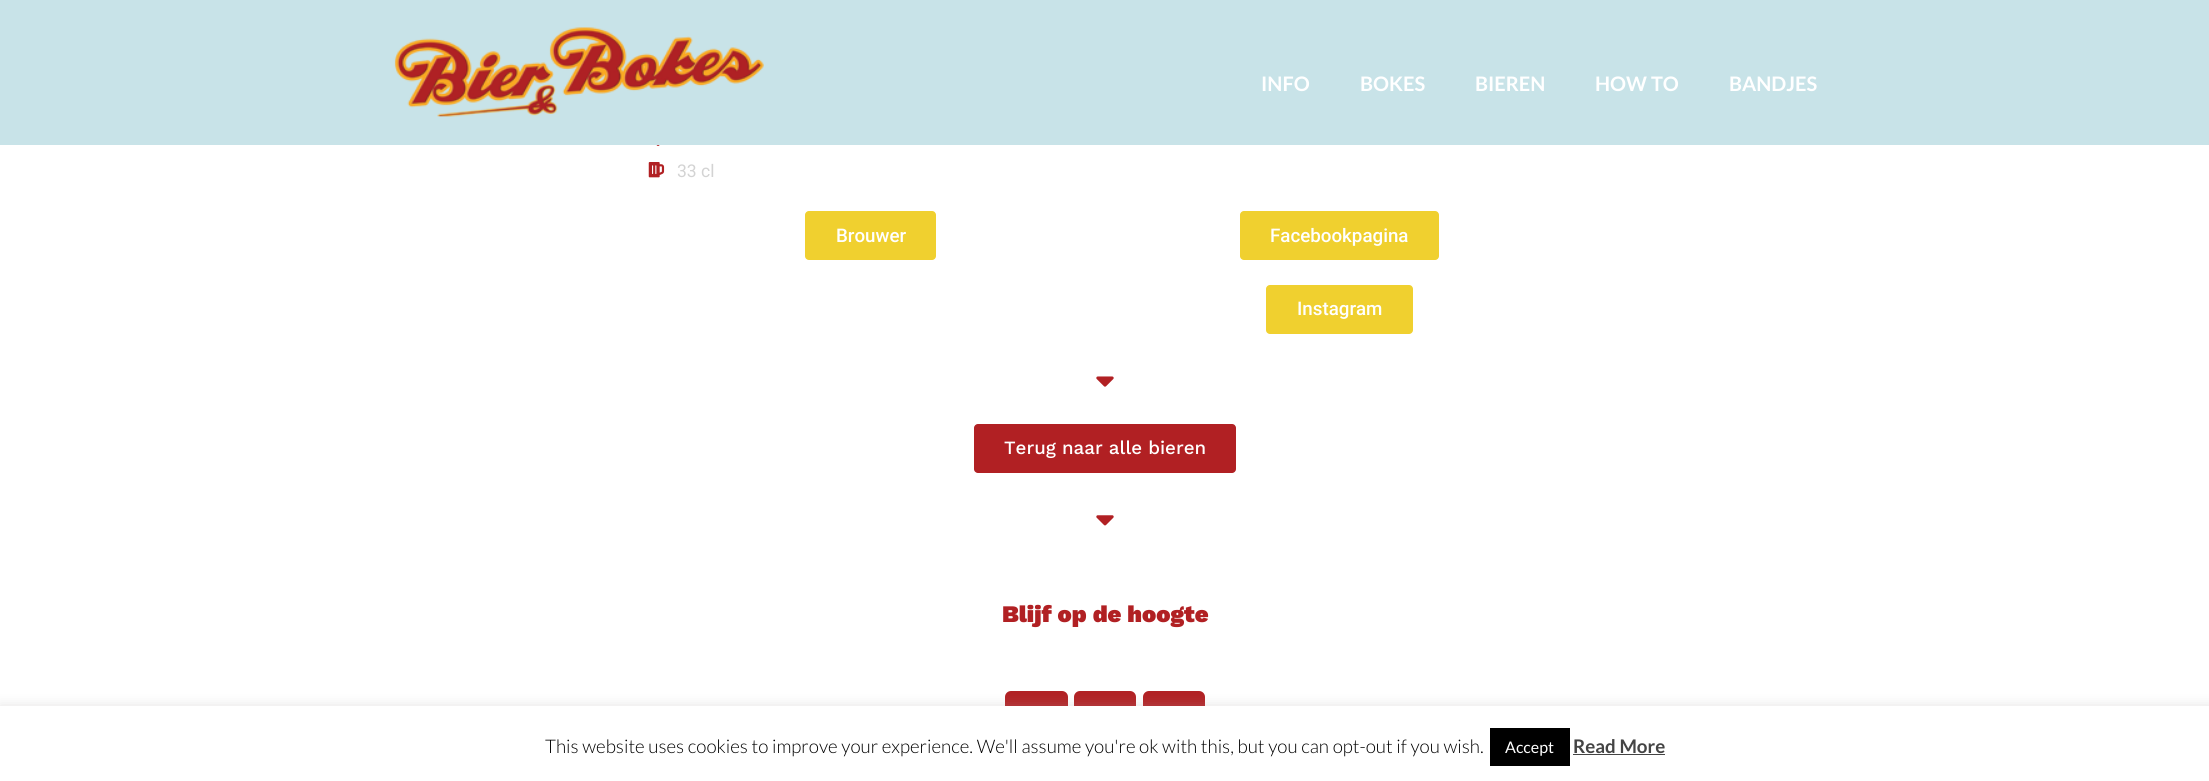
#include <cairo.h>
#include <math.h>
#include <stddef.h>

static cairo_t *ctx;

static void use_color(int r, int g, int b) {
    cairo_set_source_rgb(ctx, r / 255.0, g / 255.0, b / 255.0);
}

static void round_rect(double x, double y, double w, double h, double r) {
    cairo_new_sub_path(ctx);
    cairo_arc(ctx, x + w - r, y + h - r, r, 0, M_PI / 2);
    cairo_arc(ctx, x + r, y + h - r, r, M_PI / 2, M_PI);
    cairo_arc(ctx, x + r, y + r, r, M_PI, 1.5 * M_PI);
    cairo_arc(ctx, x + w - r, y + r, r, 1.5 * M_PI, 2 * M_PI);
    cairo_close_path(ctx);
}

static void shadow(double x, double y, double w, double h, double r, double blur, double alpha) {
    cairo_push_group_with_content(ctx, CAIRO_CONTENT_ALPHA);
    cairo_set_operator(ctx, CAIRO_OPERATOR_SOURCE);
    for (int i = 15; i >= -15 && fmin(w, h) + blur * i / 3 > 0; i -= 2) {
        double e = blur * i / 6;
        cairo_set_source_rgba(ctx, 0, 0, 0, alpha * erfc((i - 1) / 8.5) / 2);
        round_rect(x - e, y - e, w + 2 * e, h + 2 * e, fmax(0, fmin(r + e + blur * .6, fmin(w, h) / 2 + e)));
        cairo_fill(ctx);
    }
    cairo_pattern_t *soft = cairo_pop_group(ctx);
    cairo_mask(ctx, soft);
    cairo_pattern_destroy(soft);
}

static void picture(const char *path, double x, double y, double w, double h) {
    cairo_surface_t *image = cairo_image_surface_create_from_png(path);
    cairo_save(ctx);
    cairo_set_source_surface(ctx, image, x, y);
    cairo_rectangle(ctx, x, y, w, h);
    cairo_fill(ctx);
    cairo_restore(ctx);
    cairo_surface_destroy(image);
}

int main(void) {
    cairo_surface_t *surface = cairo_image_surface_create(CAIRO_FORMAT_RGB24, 2209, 781);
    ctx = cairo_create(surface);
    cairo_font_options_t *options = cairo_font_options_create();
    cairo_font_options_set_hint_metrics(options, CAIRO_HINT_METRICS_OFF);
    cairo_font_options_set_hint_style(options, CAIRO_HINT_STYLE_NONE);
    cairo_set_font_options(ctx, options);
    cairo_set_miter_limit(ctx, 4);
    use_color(255, 255, 255);
    cairo_paint(ctx);
    use_color(200, 227, 232);
    cairo_rectangle(ctx, 0, 0, 2209, 145);
    cairo_fill(ctx);
    picture("img1.png", 394, 27, 370, 90);
    cairo_select_font_face(ctx, "Lato", CAIRO_FONT_SLANT_NORMAL, CAIRO_FONT_WEIGHT_BOLD);
    cairo_set_font_size(ctx, 20);
    use_color(255, 255, 255);
    cairo_move_to(ctx, 1261, 91);
    cairo_show_text(ctx, "INFO");
    cairo_move_to(ctx, 1360, 91);
    cairo_show_text(ctx, "BOKES");
    cairo_move_to(ctx, 1475, 91);
    cairo_show_text(ctx, "BIEREN");
    cairo_move_to(ctx, 1595, 91);
    cairo_show_text(ctx, "HOW TO");
    cairo_move_to(ctx, 1729, 91);
    cairo_show_text(ctx, "BANDJES");
    picture("img2.png", 656, 145, 4, 1);
    picture("img3.png", 648, 162, 17, 16);
    cairo_select_font_face(ctx, "Roboto", CAIRO_FONT_SLANT_NORMAL, CAIRO_FONT_WEIGHT_NORMAL);
    cairo_set_font_size(ctx, 17.5);
    use_color(211, 211, 211);
    cairo_move_to(ctx, 677, 177);
    cairo_show_text(ctx, "33 cl");
    use_color(240, 208, 47);
    round_rect(805, 211, 131, 49, 4);
    cairo_fill(ctx);
    cairo_select_font_face(ctx, "Roboto Medium", CAIRO_FONT_SLANT_NORMAL, CAIRO_FONT_WEIGHT_NORMAL);
    cairo_set_font_size(ctx, 18.75);
    use_color(255, 255, 255);
    cairo_move_to(ctx, 836, 242);
    cairo_show_text(ctx, "Brouwer");
    use_color(240, 208, 47);
    round_rect(1240, 211, 199, 49, 4);
    cairo_fill(ctx);
    use_color(255, 255, 255);
    cairo_move_to(ctx, 1270, 242);
    cairo_show_text(ctx, "Facebookpagina");
    use_color(240, 208, 47);
    round_rect(1266, 285, 147, 49, 4);
    cairo_fill(ctx);
    use_color(255, 255, 255);
    cairo_move_to(ctx, 1297, 315);
    cairo_show_text(ctx, "Instagram");
    picture("img4.png", 1096, 376, 18, 11);
    use_color(177, 32, 35);
    round_rect(974, 424, 262, 49, 4);
    cairo_fill(ctx);
    cairo_select_font_face(ctx, "Work Sans Medium", CAIRO_FONT_SLANT_NORMAL, CAIRO_FONT_WEIGHT_NORMAL);
    use_color(255, 255, 255);
    cairo_move_to(ctx, 1004, 454);
    cairo_show_text(ctx, "Terug naar alle bieren");
    picture("img5.png", 1096, 515, 18, 11);
    cairo_select_font_face(ctx, "Work Sans Black", CAIRO_FONT_SLANT_NORMAL, CAIRO_FONT_WEIGHT_NORMAL);
    cairo_set_font_size(ctx, 23.75);
    use_color(177, 32, 35);
    cairo_move_to(ctx, 1002, 622);
    cairo_show_text(ctx, "Blijf op de hoogte");
    round_rect(1005, 691, 63, 63, 6);
    cairo_fill(ctx);
    round_rect(1074, 691, 62, 63, 6);
    cairo_fill(ctx);
    round_rect(1143, 691, 62, 63, 6);
    cairo_fill(ctx);
    use_color(172, 171, 171);
    shadow(0, 705, 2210, 75, 0, 6, 0.3);
    use_color(255, 255, 255);
    cairo_rectangle(ctx, 0, 706, 2209, 75);
    cairo_fill(ctx);
    cairo_select_font_face(ctx, "Lato Light", CAIRO_FONT_SLANT_NORMAL, CAIRO_FONT_WEIGHT_NORMAL);
    cairo_set_font_size(ctx, 18.75);
    use_color(0, 0, 0);
    cairo_move_to(ctx, 545, 753);
    cairo_show_text(ctx, "This website uses cookies to improve your experience. We'll assume you're ok with this, but you can opt-out if you wish.");
    cairo_rectangle(ctx, 1490, 728, 80, 38);
    cairo_fill(ctx);
    cairo_select_font_face(ctx, "Lato", CAIRO_FONT_SLANT_NORMAL, CAIRO_FONT_WEIGHT_NORMAL);
    cairo_set_font_size(ctx, 16);
    use_color(255, 255, 255);
    cairo_move_to(ctx, 1505, 753);
    cairo_show_text(ctx, "Accept");
    cairo_select_font_face(ctx, "Lato", CAIRO_FONT_SLANT_NORMAL, CAIRO_FONT_WEIGHT_BOLD);
    cairo_set_font_size(ctx, 18.75);
    use_color(68, 68, 68);
    cairo_move_to(ctx, 1573, 753);
    cairo_show_text(ctx, "Read More");
    cairo_rectangle(ctx, 1573, 754, 92, 1);
    cairo_fill(ctx);
    cairo_surface_write_to_png(surface, "result.png");
    cairo_font_options_destroy(options);
    cairo_destroy(ctx);
    cairo_surface_destroy(surface);
    return 0;
}
